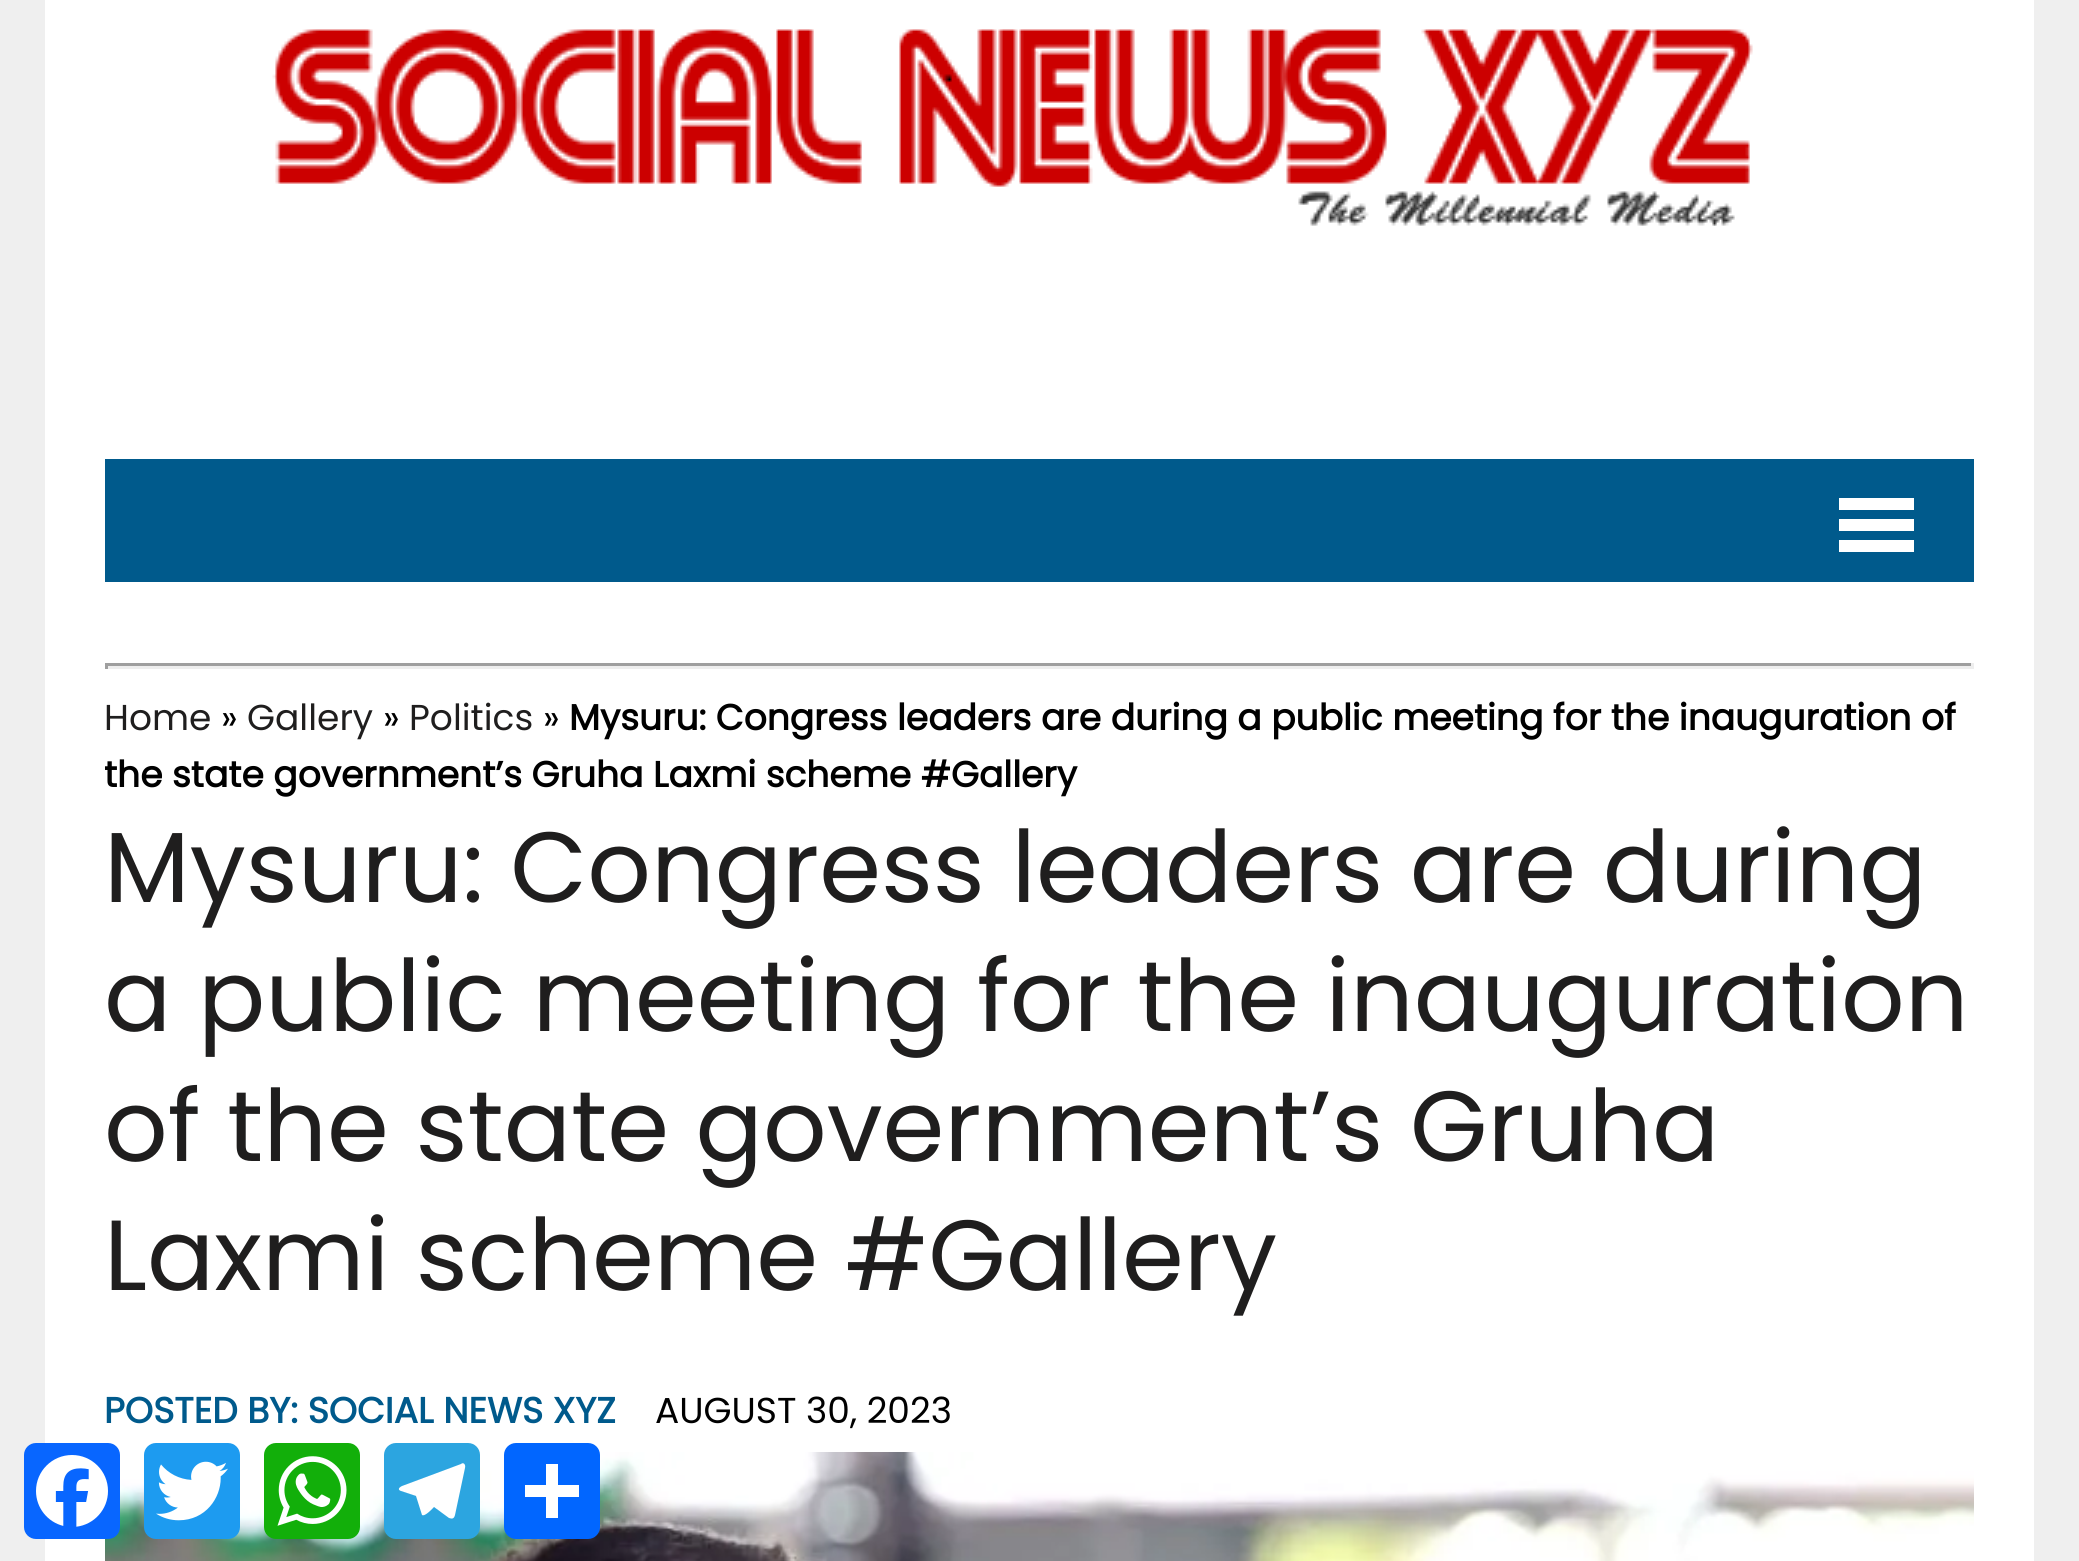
#include <cairo.h>
#include <math.h>
#include <stddef.h>

static cairo_t *ctx;

static void use_color(int r, int g, int b) {
    cairo_set_source_rgb(ctx, r / 255.0, g / 255.0, b / 255.0);
}

static void round_rect(double x, double y, double w, double h, double r) {
    cairo_new_sub_path(ctx);
    cairo_arc(ctx, x + w - r, y + h - r, r, 0, M_PI / 2);
    cairo_arc(ctx, x + r, y + h - r, r, M_PI / 2, M_PI);
    cairo_arc(ctx, x + r, y + r, r, M_PI, 1.5 * M_PI);
    cairo_arc(ctx, x + w - r, y + r, r, 1.5 * M_PI, 2 * M_PI);
    cairo_close_path(ctx);
}

static void picture(const char *path, double x, double y, double w, double h) {
    cairo_surface_t *image = cairo_image_surface_create_from_png(path);
    cairo_save(ctx);
    cairo_set_source_surface(ctx, image, x, y);
    cairo_rectangle(ctx, x, y, w, h);
    cairo_fill(ctx);
    cairo_restore(ctx);
    cairo_surface_destroy(image);
}

int main(void) {
    cairo_surface_t *surface = cairo_image_surface_create(CAIRO_FORMAT_RGB24, 2079, 1561);
    ctx = cairo_create(surface);
    cairo_font_options_t *options = cairo_font_options_create();
    cairo_font_options_set_hint_metrics(options, CAIRO_HINT_METRICS_OFF);
    cairo_font_options_set_hint_style(options, CAIRO_HINT_STYLE_NONE);
    cairo_set_font_options(ctx, options);
    cairo_set_miter_limit(ctx, 4);
    use_color(239, 239, 239);
    cairo_paint(ctx);
    use_color(255, 255, 255);
    cairo_rectangle(ctx, 45, 0, 1989, 1561);
    cairo_fill(ctx);
    picture("img1.png", 272, 29, 1481, 197);
    use_color(0, 90, 140);
    cairo_rectangle(ctx, 105, 459, 1869, 123);
    cairo_fill(ctx);
    use_color(255, 255, 255);
    cairo_rectangle(ctx, 1839, 498, 75, 12);
    cairo_fill(ctx);
    cairo_rectangle(ctx, 1839, 519, 75, 12);
    cairo_fill(ctx);
    cairo_rectangle(ctx, 1839, 540, 75, 12);
    cairo_fill(ctx);
    use_color(159, 159, 159);
    cairo_rectangle(ctx, 105, 663, 1869, 3);
    cairo_fill(ctx);
    use_color(238, 238, 238);
    cairo_rectangle(ctx, 1971, 663, 3, 6);
    cairo_fill(ctx);
    cairo_rectangle(ctx, 105, 666, 1869, 3);
    cairo_fill(ctx);
    use_color(159, 159, 159);
    cairo_rectangle(ctx, 105, 663, 3, 6);
    cairo_fill(ctx);
    cairo_select_font_face(ctx, "Poppins", CAIRO_FONT_SLANT_NORMAL, CAIRO_FONT_WEIGHT_NORMAL);
    cairo_set_font_size(ctx, 36);
    use_color(31, 30, 30);
    cairo_move_to(ctx, 104, 730);
    cairo_show_text(ctx, "Home");
    use_color(0, 0, 0);
    cairo_move_to(ctx, 221, 730);
    cairo_show_text(ctx, "»");
    use_color(31, 30, 30);
    cairo_move_to(ctx, 247, 730);
    cairo_show_text(ctx, "Gallery");
    use_color(0, 0, 0);
    cairo_move_to(ctx, 383, 730);
    cairo_show_text(ctx, "»");
    use_color(31, 30, 30);
    cairo_move_to(ctx, 409, 730);
    cairo_show_text(ctx, "Politics");
    use_color(0, 0, 0);
    cairo_move_to(ctx, 543, 730);
    cairo_show_text(ctx, "»");
    cairo_select_font_face(ctx, "Poppins", CAIRO_FONT_SLANT_NORMAL, CAIRO_FONT_WEIGHT_BOLD);
    cairo_move_to(ctx, 569, 730);
    cairo_show_text(ctx, "Mysuru: Congress leaders are during a public meeting for the inauguration of");
    cairo_save(ctx);
    cairo_rectangle(ctx, 105, 687, 1869, 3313);
    cairo_clip(ctx);
    cairo_move_to(ctx, 104, 787);
    cairo_show_text(ctx, "the state government’s Gruha Laxmi scheme #Gallery");
    cairo_restore(ctx);
    cairo_select_font_face(ctx, "Poppins", CAIRO_FONT_SLANT_NORMAL, CAIRO_FONT_WEIGHT_NORMAL);
    cairo_set_font_size(ctx, 99.6);
    use_color(31, 30, 30);
    cairo_move_to(ctx, 104, 902);
    cairo_show_text(ctx, "Mysuru: Congress leaders are during");
    cairo_move_to(ctx, 104, 1031);
    cairo_show_text(ctx, "a public meeting for the inauguration");
    cairo_move_to(ctx, 104, 1161);
    cairo_show_text(ctx, "of the state government’s Gruha");
    cairo_move_to(ctx, 104, 1290);
    cairo_show_text(ctx, "Laxmi scheme #Gallery");
    cairo_select_font_face(ctx, "Poppins", CAIRO_FONT_SLANT_NORMAL, CAIRO_FONT_WEIGHT_BOLD);
    cairo_set_font_size(ctx, 36);
    use_color(0, 90, 140);
    cairo_move_to(ctx, 104, 1423);
    cairo_show_text(ctx, "POSTED BY: SOCIAL NEWS XYZ");
    cairo_select_font_face(ctx, "Poppins", CAIRO_FONT_SLANT_NORMAL, CAIRO_FONT_WEIGHT_NORMAL);
    use_color(0, 0, 0);
    cairo_move_to(ctx, 655, 1423);
    cairo_show_text(ctx, "AUGUST 30, 2023");
    picture("img2.png", 105, 1452, 1869, 109);
    use_color(8, 102, 255);
    round_rect(24, 1443, 96, 96, 12);
    cairo_fill(ctx);
    picture("img3.png", 36, 1455, 72, 72);
    use_color(29, 155, 240);
    round_rect(144, 1443, 96, 96, 12);
    cairo_fill(ctx);
    picture("img4.png", 156, 1461, 72, 60);
    use_color(18, 175, 10);
    round_rect(264, 1443, 96, 96, 12);
    cairo_fill(ctx);
    picture("img5.png", 277, 1456, 70, 70);
    use_color(44, 165, 224);
    round_rect(384, 1443, 96, 96, 12);
    cairo_fill(ctx);
    use_color(255, 255, 255);
    cairo_new_path(ctx);
    cairo_move_to(ctx, 461, 1464);
    cairo_line_to(ctx, 402, 1486);
    cairo_curve_to(ctx, 398, 1488, 398, 1490, 401, 1491);
    cairo_line_to(ctx, 416, 1496);
    cairo_line_to(ctx, 422, 1515);
    cairo_curve_to(ctx, 425, 1517, 433, 1508, 434, 1507);
    cairo_line_to(ctx, 449, 1518);
    cairo_curve_to(ctx, 452, 1519, 454, 1519, 455, 1515);
    cairo_line_to(ctx, 465, 1468);
    cairo_curve_to(ctx, 466, 1464, 463, 1462, 461, 1464);
    cairo_close_path(ctx);
    cairo_fill(ctx);
    use_color(1, 102, 255);
    round_rect(504, 1443, 96, 96, 12);
    cairo_fill(ctx);
    use_color(255, 255, 255);
    cairo_rectangle(ctx, 546, 1464, 12, 54);
    cairo_fill(ctx);
    cairo_rectangle(ctx, 525, 1485, 54, 12);
    cairo_fill(ctx);
    cairo_surface_write_to_png(surface, "result.png");
    cairo_font_options_destroy(options);
    cairo_destroy(ctx);
    cairo_surface_destroy(surface);
    return 0;
}
